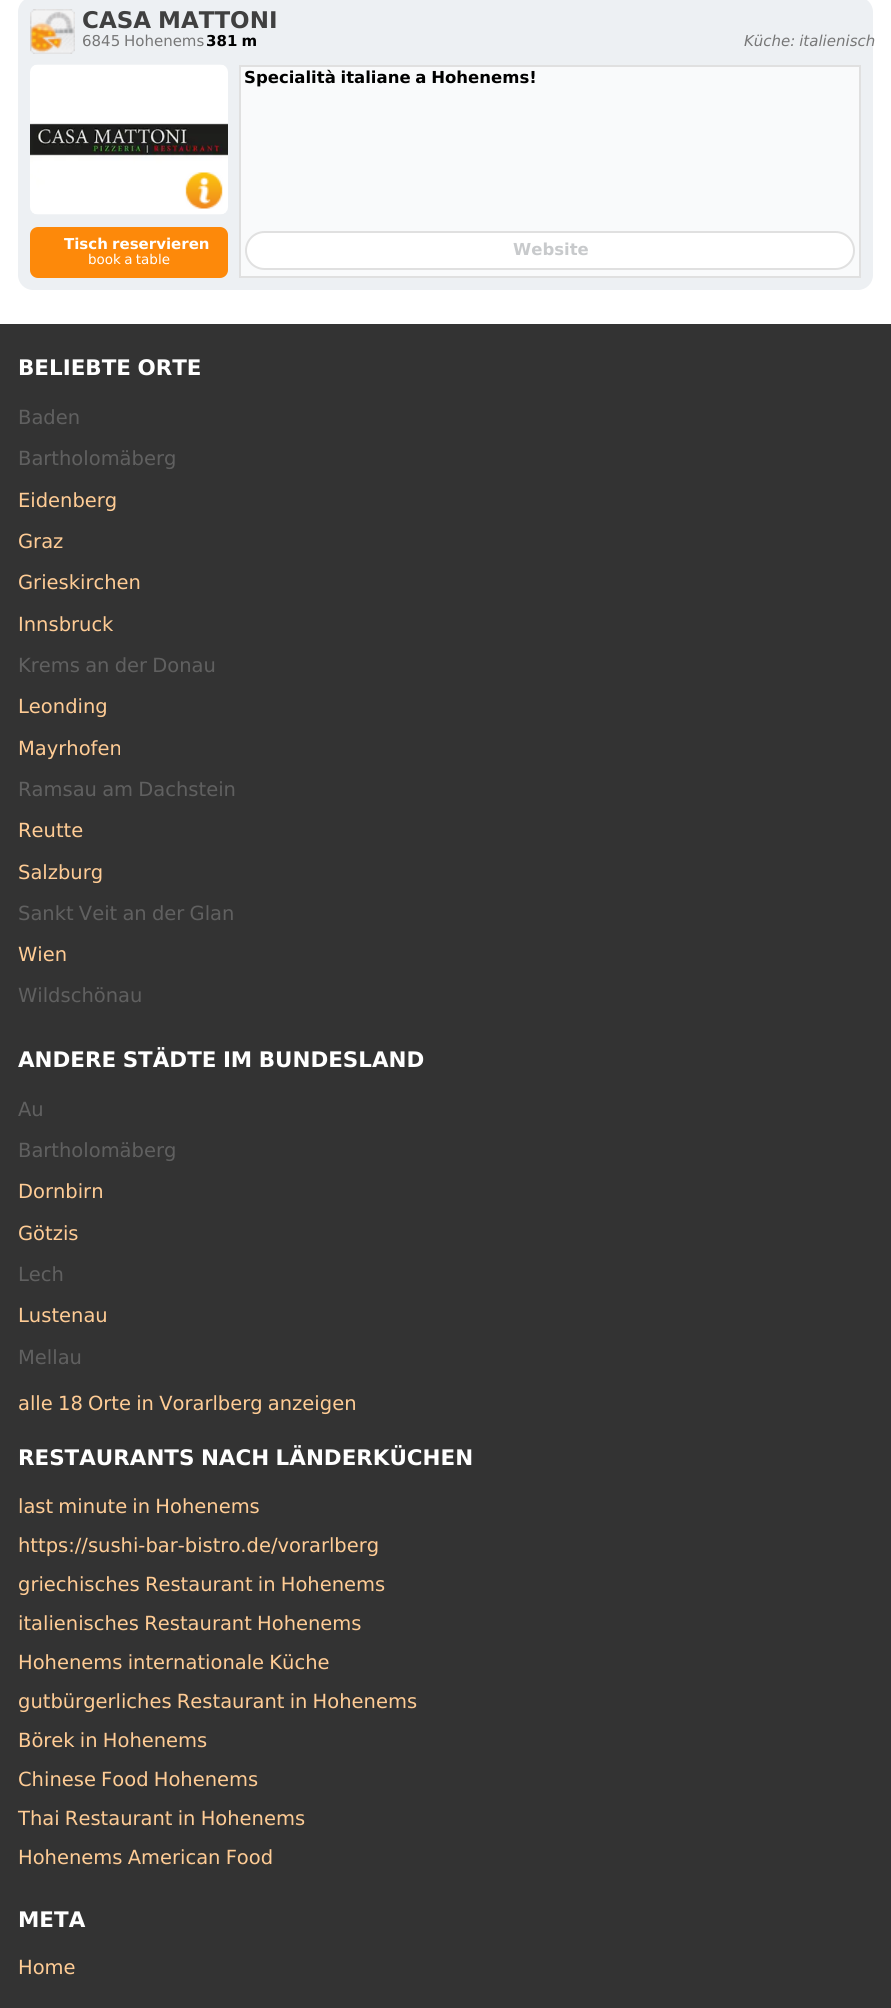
#include <cairo.h>
#include <math.h>
#include <stddef.h>

static cairo_t *ctx;

static void use_color(int r, int g, int b) {
    cairo_set_source_rgb(ctx, r / 255.0, g / 255.0, b / 255.0);
}

static void spaced_text(double x, double y, const char *s, double letter, double word) {
    cairo_move_to(ctx, x, y);
    while (*s) {
        char ch[5] = {0};
        int n = 0;
        do ch[n++] = *s++; while ((*s & 0xC0) == 0x80);
        cairo_show_text(ctx, ch);
        cairo_rel_move_to(ctx, letter + word * (*ch == ' '), 0);
    }
}

static void round_rect(double x, double y, double w, double h, double r) {
    cairo_new_sub_path(ctx);
    cairo_arc(ctx, x + w - r, y + h - r, r, 0, M_PI / 2);
    cairo_arc(ctx, x + r, y + h - r, r, M_PI / 2, M_PI);
    cairo_arc(ctx, x + r, y + r, r, M_PI, 1.5 * M_PI);
    cairo_arc(ctx, x + w - r, y + r, r, 1.5 * M_PI, 2 * M_PI);
    cairo_close_path(ctx);
}

static void picture(const char *path, double x, double y, double w, double h) {
    cairo_surface_t *image = cairo_image_surface_create_from_png(path);
    cairo_save(ctx);
    cairo_set_source_surface(ctx, image, x, y);
    cairo_rectangle(ctx, x, y, w, h);
    cairo_fill(ctx);
    cairo_restore(ctx);
    cairo_surface_destroy(image);
}

int main(void) {
    cairo_surface_t *surface = cairo_image_surface_create(CAIRO_FORMAT_RGB24, 891, 2008);
    ctx = cairo_create(surface);
    cairo_font_options_t *options = cairo_font_options_create();
    cairo_font_options_set_hint_metrics(options, CAIRO_HINT_METRICS_OFF);
    cairo_font_options_set_hint_style(options, CAIRO_HINT_STYLE_NONE);
    cairo_set_font_options(ctx, options);
    cairo_set_miter_limit(ctx, 4);
    use_color(255, 255, 255);
    cairo_paint(ctx);
    use_color(237, 240, 243);
    round_rect(18, -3, 855, 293, 15);
    cairo_fill(ctx);
    picture("img1.png", 30, 9, 45, 45);
    cairo_select_font_face(ctx, "DejaVu Sans", CAIRO_FONT_SLANT_NORMAL, CAIRO_FONT_WEIGHT_BOLD);
    cairo_set_font_size(ctx, 23);
    use_color(64, 64, 64);
    spaced_text(82, 28, "CASA MATTONI", 0, -1);
    cairo_select_font_face(ctx, "DejaVu Sans", CAIRO_FONT_SLANT_NORMAL, CAIRO_FONT_WEIGHT_NORMAL);
    cairo_set_font_size(ctx, 15);
    use_color(119, 119, 119);
    spaced_text(82, 46, "6845 Hohenems", 0, -1);
    cairo_select_font_face(ctx, "DejaVu Sans", CAIRO_FONT_SLANT_NORMAL, CAIRO_FONT_WEIGHT_BOLD);
    use_color(0, 0, 0);
    spaced_text(206, 46, "381 m", 0, -1);
    cairo_select_font_face(ctx, "DejaVu Sans", CAIRO_FONT_SLANT_ITALIC, CAIRO_FONT_WEIGHT_NORMAL);
    use_color(119, 119, 119);
    spaced_text(744, 46, "Küche: italienisch", 0, -1);
    picture("img2.png", 30, 64, 198, 151);
    picture("img3.png", 185, 172, 38, 37);
    use_color(253, 137, 10);
    round_rect(30, 227, 198, 51, 8);
    cairo_fill(ctx);
    cairo_select_font_face(ctx, "DejaVu Sans", CAIRO_FONT_SLANT_NORMAL, CAIRO_FONT_WEIGHT_BOLD);
    use_color(255, 255, 255);
    spaced_text(64, 249, "Tisch reservieren", 0, -1);
    cairo_select_font_face(ctx, "DejaVu Sans", CAIRO_FONT_SLANT_NORMAL, CAIRO_FONT_WEIGHT_NORMAL);
    cairo_set_font_size(ctx, 13.5);
    spaced_text(88, 264, "book a table", 0, -1);
    use_color(249, 250, 251);
    cairo_rectangle(ctx, 240, 66, 620, 211);
    cairo_fill_preserve(ctx);
    use_color(224, 224, 224);
    cairo_stroke(ctx);
    cairo_select_font_face(ctx, "DejaVu Sans", CAIRO_FONT_SLANT_NORMAL, CAIRO_FONT_WEIGHT_BOLD);
    cairo_set_font_size(ctx, 16.5);
    use_color(0, 0, 0);
    spaced_text(244, 83, "Specialità italiane a Hohenems!", 0, -1);
    use_color(255, 255, 255);
    round_rect(246, 232, 608, 37, 18.5);
    cairo_fill_preserve(ctx);
    use_color(224, 224, 224);
    cairo_stroke(ctx);
    use_color(200, 202, 204);
    cairo_move_to(ctx, 513, 255);
    cairo_show_text(ctx, "Website");
    use_color(51, 51, 51);
    cairo_rectangle(ctx, 0, 324, 891, 1684);
    cairo_fill(ctx);
    cairo_set_font_size(ctx, 21.45);
    use_color(255, 255, 255);
    spaced_text(18, 375, "BELIEBTE ORTE", 0, -1);
    cairo_select_font_face(ctx, "DejaVu Sans", CAIRO_FONT_SLANT_NORMAL, CAIRO_FONT_WEIGHT_NORMAL);
    cairo_set_font_size(ctx, 19.5);
    use_color(96, 96, 96);
    cairo_move_to(ctx, 18, 424);
    cairo_show_text(ctx, "Baden");
    cairo_move_to(ctx, 18, 465);
    cairo_show_text(ctx, "Bartholomäberg");
    use_color(255, 204, 149);
    cairo_move_to(ctx, 18, 507);
    cairo_show_text(ctx, "Eidenberg");
    cairo_move_to(ctx, 18, 548);
    cairo_show_text(ctx, "Graz");
    cairo_move_to(ctx, 18, 589);
    cairo_show_text(ctx, "Grieskirchen");
    cairo_move_to(ctx, 18, 631);
    cairo_show_text(ctx, "Innsbruck");
    use_color(96, 96, 96);
    spaced_text(18, 672, "Krems an der Donau", 0, -1);
    use_color(255, 204, 149);
    cairo_move_to(ctx, 18, 713);
    cairo_show_text(ctx, "Leonding");
    cairo_move_to(ctx, 18, 755);
    cairo_show_text(ctx, "Mayrhofen");
    use_color(96, 96, 96);
    spaced_text(18, 796, "Ramsau am Dachstein", 0, -1);
    use_color(255, 204, 149);
    cairo_move_to(ctx, 18, 837);
    cairo_show_text(ctx, "Reutte");
    cairo_move_to(ctx, 18, 879);
    cairo_show_text(ctx, "Salzburg");
    use_color(96, 96, 96);
    spaced_text(18, 920, "Sankt Veit an der Glan", 0, -1);
    use_color(255, 204, 149);
    cairo_move_to(ctx, 18, 961);
    cairo_show_text(ctx, "Wien");
    use_color(96, 96, 96);
    cairo_move_to(ctx, 18, 1002);
    cairo_show_text(ctx, "Wildschönau");
    cairo_select_font_face(ctx, "DejaVu Sans", CAIRO_FONT_SLANT_NORMAL, CAIRO_FONT_WEIGHT_BOLD);
    cairo_set_font_size(ctx, 21.45);
    use_color(255, 255, 255);
    spaced_text(18, 1067, "ANDERE STÄDTE IM BUNDESLAND", 0, -1);
    cairo_select_font_face(ctx, "DejaVu Sans", CAIRO_FONT_SLANT_NORMAL, CAIRO_FONT_WEIGHT_NORMAL);
    cairo_set_font_size(ctx, 19.5);
    use_color(96, 96, 96);
    cairo_move_to(ctx, 18, 1116);
    cairo_show_text(ctx, "Au");
    cairo_move_to(ctx, 18, 1157);
    cairo_show_text(ctx, "Bartholomäberg");
    use_color(255, 204, 149);
    cairo_move_to(ctx, 18, 1198);
    cairo_show_text(ctx, "Dornbirn");
    cairo_move_to(ctx, 18, 1240);
    cairo_show_text(ctx, "Götzis");
    use_color(96, 96, 96);
    cairo_move_to(ctx, 18, 1281);
    cairo_show_text(ctx, "Lech");
    use_color(255, 204, 149);
    cairo_move_to(ctx, 18, 1322);
    cairo_show_text(ctx, "Lustenau");
    use_color(96, 96, 96);
    cairo_move_to(ctx, 18, 1364);
    cairo_show_text(ctx, "Mellau");
    use_color(255, 204, 149);
    spaced_text(18, 1410, "alle 18 Orte in Vorarlberg anzeigen", 0, -1);
    cairo_select_font_face(ctx, "DejaVu Sans", CAIRO_FONT_SLANT_NORMAL, CAIRO_FONT_WEIGHT_BOLD);
    cairo_set_font_size(ctx, 21.45);
    use_color(255, 255, 255);
    spaced_text(18, 1465, "RESTAURANTS NACH LÄNDERKÜCHEN", 0, -1);
    cairo_select_font_face(ctx, "DejaVu Sans", CAIRO_FONT_SLANT_NORMAL, CAIRO_FONT_WEIGHT_NORMAL);
    cairo_set_font_size(ctx, 19.5);
    use_color(255, 204, 149);
    spaced_text(18, 1513, "last minute in Hohenems", 0, -1);
    cairo_move_to(ctx, 18, 1552);
    cairo_show_text(ctx, "https://sushi-bar-bistro.de/vorarlberg");
    spaced_text(18, 1591, "griechisches Restaurant in Hohenems", 0, -1);
    spaced_text(18, 1630, "italienisches Restaurant Hohenems", 0, -1);
    spaced_text(18, 1669, "Hohenems internationale Küche", 0, -1);
    spaced_text(18, 1708, "gutbürgerliches Restaurant in Hohenems", 0, -1);
    spaced_text(18, 1747, "Börek in Hohenems", 0, -1);
    spaced_text(18, 1786, "Chinese Food Hohenems", 0, -1);
    spaced_text(18, 1825, "Thai Restaurant in Hohenems", 0, -1);
    spaced_text(18, 1864, "Hohenems American Food", 0, -1);
    cairo_select_font_face(ctx, "DejaVu Sans", CAIRO_FONT_SLANT_NORMAL, CAIRO_FONT_WEIGHT_BOLD);
    cairo_set_font_size(ctx, 21.45);
    use_color(255, 255, 255);
    cairo_move_to(ctx, 18, 1927);
    cairo_show_text(ctx, "META");
    cairo_select_font_face(ctx, "DejaVu Sans", CAIRO_FONT_SLANT_NORMAL, CAIRO_FONT_WEIGHT_NORMAL);
    cairo_set_font_size(ctx, 19.5);
    use_color(255, 204, 149);
    cairo_move_to(ctx, 18, 1974);
    cairo_show_text(ctx, "Home");
    cairo_surface_write_to_png(surface, "result.png");
    cairo_font_options_destroy(options);
    cairo_destroy(ctx);
    cairo_surface_destroy(surface);
    return 0;
}
